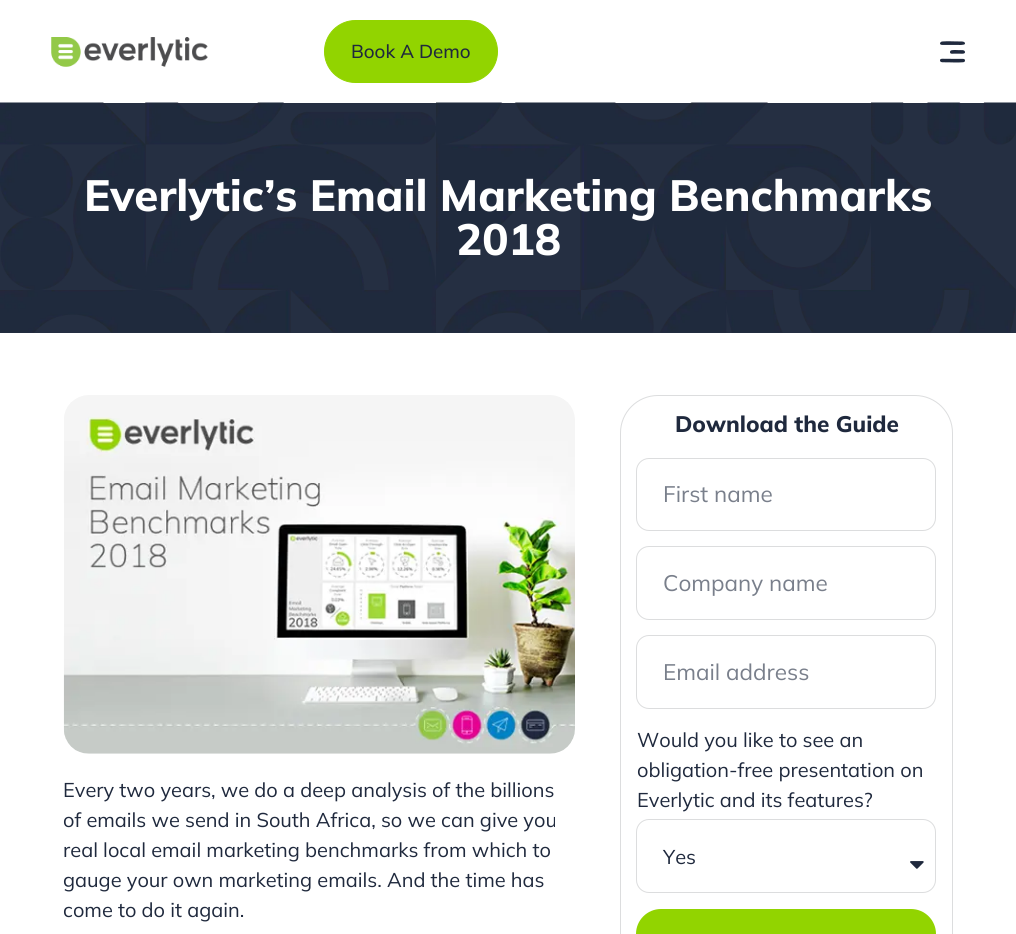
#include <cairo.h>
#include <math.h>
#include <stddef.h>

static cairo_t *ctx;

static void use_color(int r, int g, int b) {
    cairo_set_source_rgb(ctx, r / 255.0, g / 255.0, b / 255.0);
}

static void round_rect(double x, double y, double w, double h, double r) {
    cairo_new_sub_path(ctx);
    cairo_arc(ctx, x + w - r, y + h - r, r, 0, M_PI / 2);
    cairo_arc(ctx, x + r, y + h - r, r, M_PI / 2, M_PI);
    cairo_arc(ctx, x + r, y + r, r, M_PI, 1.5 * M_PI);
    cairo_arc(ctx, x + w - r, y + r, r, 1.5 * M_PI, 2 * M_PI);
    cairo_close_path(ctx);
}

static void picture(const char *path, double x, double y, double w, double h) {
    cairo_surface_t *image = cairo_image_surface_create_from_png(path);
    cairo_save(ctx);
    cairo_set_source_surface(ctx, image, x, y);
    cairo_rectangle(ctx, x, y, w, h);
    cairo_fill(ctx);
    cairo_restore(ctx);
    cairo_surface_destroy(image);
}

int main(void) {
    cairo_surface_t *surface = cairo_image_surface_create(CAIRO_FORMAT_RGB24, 1016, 934);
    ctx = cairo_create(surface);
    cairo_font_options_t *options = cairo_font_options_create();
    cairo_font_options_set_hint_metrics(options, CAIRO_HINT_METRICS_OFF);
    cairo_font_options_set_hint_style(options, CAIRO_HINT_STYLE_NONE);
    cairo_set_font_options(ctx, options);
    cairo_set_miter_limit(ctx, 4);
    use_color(255, 255, 255);
    cairo_paint(ctx);
    picture("img1.png", 51, 37, 157, 30);
    use_color(146, 212, 0);
    round_rect(324.5, 20.5, 173, 62, 31);
    cairo_fill_preserve(ctx);
    cairo_set_line_width(ctx, 1);
    cairo_stroke(ctx);
    cairo_select_font_face(ctx, "Mulish Medium", CAIRO_FONT_SLANT_NORMAL, CAIRO_FONT_WEIGHT_NORMAL);
    cairo_set_font_size(ctx, 18.75);
    use_color(31, 41, 61);
    cairo_move_to(ctx, 351, 58);
    cairo_show_text(ctx, "Book A Demo");
    picture("img2.png", 940, 41, 25, 22);
    use_color(37, 47, 66);
    cairo_rectangle(ctx, 0, 103, 1016, 230);
    cairo_fill(ctx);
    picture("img3.png", 0, 102, 1016, 231);
    cairo_select_font_face(ctx, "Mulish ExtraBold", CAIRO_FONT_SLANT_NORMAL, CAIRO_FONT_WEIGHT_NORMAL);
    cairo_set_font_size(ctx, 43.75);
    use_color(255, 255, 255);
    cairo_move_to(ctx, 84, 211);
    cairo_show_text(ctx, "Everlytic’s Email Marketing Benchmarks");
    cairo_move_to(ctx, 456, 255);
    cairo_show_text(ctx, "2018");
    picture("img4.png", 63, 395, 512, 359);
    cairo_select_font_face(ctx, "Mulish", CAIRO_FONT_SLANT_NORMAL, CAIRO_FONT_WEIGHT_NORMAL);
    cairo_set_font_size(ctx, 20);
    use_color(31, 41, 61);
    cairo_move_to(ctx, 63, 797);
    cairo_show_text(ctx, "Every two years, we do a deep analysis of the billions");
    cairo_move_to(ctx, 63, 827);
    cairo_show_text(ctx, "of emails we send in South Africa, so we can give you");
    cairo_move_to(ctx, 63, 857);
    cairo_show_text(ctx, "real local email marketing benchmarks from which to");
    cairo_move_to(ctx, 63, 887);
    cairo_show_text(ctx, "gauge your own marketing emails. And the time has");
    cairo_move_to(ctx, 63, 917);
    cairo_show_text(ctx, "come to do it again.");
    round_rect(620.5, 395.5, 332, 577, 37.5);
    use_color(220, 221, 222);
    cairo_stroke(ctx);
    cairo_select_font_face(ctx, "Mulish ExtraBold", CAIRO_FONT_SLANT_NORMAL, CAIRO_FONT_WEIGHT_NORMAL);
    cairo_set_font_size(ctx, 22.5);
    use_color(31, 41, 61);
    cairo_move_to(ctx, 675, 432);
    cairo_show_text(ctx, "Download the Guide");
    round_rect(636.5, 458.5, 299, 72, 12.5);
    use_color(220, 221, 222);
    cairo_stroke(ctx);
    cairo_select_font_face(ctx, "Mulish", CAIRO_FONT_SLANT_NORMAL, CAIRO_FONT_WEIGHT_NORMAL);
    use_color(121, 127, 139);
    cairo_move_to(ctx, 663, 502);
    cairo_show_text(ctx, "First name");
    round_rect(636.5, 546.5, 299, 73, 12.5);
    use_color(220, 221, 222);
    cairo_stroke(ctx);
    use_color(121, 127, 139);
    cairo_move_to(ctx, 663, 591);
    cairo_show_text(ctx, "Company name");
    round_rect(636.5, 635.5, 299, 73, 12.5);
    use_color(220, 221, 222);
    cairo_stroke(ctx);
    use_color(121, 127, 139);
    cairo_move_to(ctx, 663, 680);
    cairo_show_text(ctx, "Email address");
    cairo_set_font_size(ctx, 20);
    use_color(31, 41, 61);
    cairo_move_to(ctx, 637, 747);
    cairo_show_text(ctx, "Would you like to see an");
    cairo_move_to(ctx, 637, 777);
    cairo_show_text(ctx, "obligation-free presentation on");
    cairo_move_to(ctx, 637, 807);
    cairo_show_text(ctx, "Everlytic and its features?");
    round_rect(636.5, 819.5, 299, 73, 12.5);
    use_color(220, 221, 222);
    cairo_stroke(ctx);
    use_color(31, 41, 61);
    cairo_move_to(ctx, 663, 864);
    cairo_show_text(ctx, "Yes");
    picture("img5.png", 910, 861, 14, 8);
    use_color(146, 212, 0);
    round_rect(636, 909, 300, 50, 25);
    cairo_fill(ctx);
    cairo_surface_write_to_png(surface, "result.png");
    cairo_font_options_destroy(options);
    cairo_destroy(ctx);
    cairo_surface_destroy(surface);
    return 0;
}
